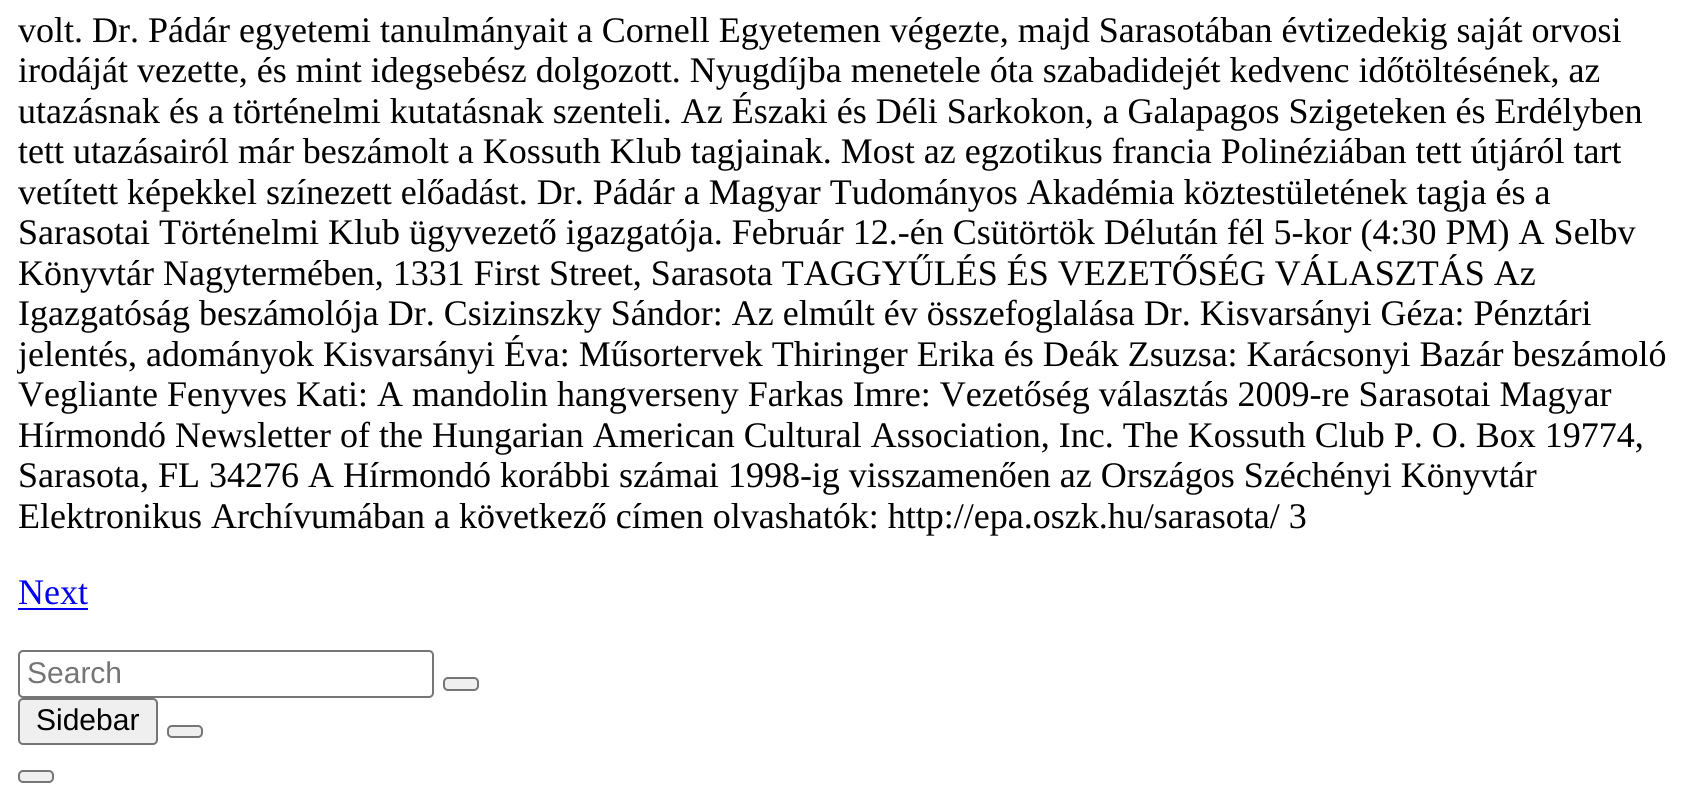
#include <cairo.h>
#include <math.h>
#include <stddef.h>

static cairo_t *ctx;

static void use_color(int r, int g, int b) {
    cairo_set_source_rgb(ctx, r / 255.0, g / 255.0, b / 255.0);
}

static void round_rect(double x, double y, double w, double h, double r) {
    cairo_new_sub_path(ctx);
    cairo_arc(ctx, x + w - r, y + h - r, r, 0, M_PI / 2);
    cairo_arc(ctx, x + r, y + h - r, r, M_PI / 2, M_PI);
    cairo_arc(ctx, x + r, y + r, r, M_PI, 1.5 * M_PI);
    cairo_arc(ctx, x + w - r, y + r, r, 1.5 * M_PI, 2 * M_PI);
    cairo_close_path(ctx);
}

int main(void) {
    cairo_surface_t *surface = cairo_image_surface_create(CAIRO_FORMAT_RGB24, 1694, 801);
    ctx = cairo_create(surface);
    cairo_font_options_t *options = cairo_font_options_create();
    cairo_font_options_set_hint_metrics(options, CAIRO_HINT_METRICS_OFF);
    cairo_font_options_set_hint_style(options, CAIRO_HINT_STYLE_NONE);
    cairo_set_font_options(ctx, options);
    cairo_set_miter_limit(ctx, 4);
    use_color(255, 255, 255);
    cairo_paint(ctx);
    cairo_select_font_face(ctx, "Liberation Serif", CAIRO_FONT_SLANT_NORMAL, CAIRO_FONT_WEIGHT_NORMAL);
    cairo_set_font_size(ctx, 36);
    use_color(0, 0, 0);
    cairo_move_to(ctx, 18, 42);
    cairo_show_text(ctx, "volt. Dr. Pádár egyetemi tanulmányait a Cornell Egyetemen végezte, majd Sarasotában évtizedekig saját orvosi");
    cairo_move_to(ctx, 18, 82);
    cairo_show_text(ctx, "irodáját vezette, és mint idegsebész dolgozott. Nyugdíjba menetele óta szabadidejét kedvenc időtöltésének, az");
    cairo_move_to(ctx, 18, 123);
    cairo_show_text(ctx, "utazásnak és a történelmi kutatásnak szenteli. Az Északi és Déli Sarkokon, a Galapagos Szigeteken és Erdélyben");
    cairo_move_to(ctx, 18, 163);
    cairo_show_text(ctx, "tett utazásairól már beszámolt a Kossuth Klub tagjainak. Most az egzotikus francia Polinéziában tett útjáról tart");
    cairo_move_to(ctx, 18, 204);
    cairo_show_text(ctx, "vetített képekkel színezett előadást. Dr. Pádár a Magyar Tudományos Akadémia köztestületének tagja és a");
    cairo_move_to(ctx, 18, 244);
    cairo_show_text(ctx, "Sarasotai Történelmi Klub ügyvezető igazgatója. Február 12.-én Csütörtök Délután fél 5-kor (4:30 PM) A Selbv");
    cairo_move_to(ctx, 18, 285);
    cairo_show_text(ctx, "Könyvtár Nagytermében, 1331 First Street, Sarasota TAGGYŰLÉS ÉS VEZETŐSÉG VÁLASZTÁS Az");
    cairo_move_to(ctx, 18, 325);
    cairo_show_text(ctx, "Igazgatóság beszámolója Dr. Csizinszky Sándor: Az elmúlt év összefoglalása Dr. Kisvarsányi Géza: Pénztári");
    cairo_move_to(ctx, 18, 366);
    cairo_show_text(ctx, "jelentés, adományok Kisvarsányi Éva: Műsortervek Thiringer Erika és Deák Zsuzsa: Karácsonyi Bazár beszámoló");
    cairo_move_to(ctx, 18, 406);
    cairo_show_text(ctx, "Vegliante Fenyves Kati: A mandolin hangverseny Farkas Imre: Vezetőség választás 2009-re Sarasotai Magyar");
    cairo_move_to(ctx, 18, 447);
    cairo_show_text(ctx, "Hírmondó Newsletter of the Hungarian American Cultural Association, Inc. The Kossuth Club P. O. Box 19774,");
    cairo_move_to(ctx, 18, 487);
    cairo_show_text(ctx, "Sarasota, FL 34276 A Hírmondó korábbi számai 1998-ig visszamenően az Országos Széchényi Könyvtár");
    cairo_move_to(ctx, 18, 528);
    cairo_show_text(ctx, "Elektronikus Archívumában a következő címen olvashatók: http://epa.oszk.hu/sarasota/ 3");
    use_color(0, 0, 238);
    cairo_move_to(ctx, 18, 604);
    cairo_show_text(ctx, "Next");
    cairo_rectangle(ctx, 18, 608, 70, 2);
    cairo_fill(ctx);
    round_rect(19, 651, 414, 46, 4);
    use_color(118, 118, 118);
    cairo_stroke(ctx);
    cairo_select_font_face(ctx, "Liberation Sans", CAIRO_FONT_SLANT_NORMAL, CAIRO_FONT_WEIGHT_NORMAL);
    cairo_set_font_size(ctx, 30);
    use_color(117, 117, 117);
    cairo_move_to(ctx, 27, 683);
    cairo_show_text(ctx, "Search");
    use_color(239, 239, 239);
    round_rect(444, 678, 34, 12, 4);
    cairo_fill_preserve(ctx);
    use_color(118, 118, 118);
    cairo_stroke(ctx);
    use_color(239, 239, 239);
    round_rect(19, 699, 138, 45, 4);
    cairo_fill_preserve(ctx);
    use_color(118, 118, 118);
    cairo_stroke(ctx);
    use_color(0, 0, 0);
    cairo_move_to(ctx, 36, 730);
    cairo_show_text(ctx, "Sidebar");
    use_color(239, 239, 239);
    round_rect(168, 726, 34, 11, 4);
    cairo_fill_preserve(ctx);
    use_color(118, 118, 118);
    cairo_stroke(ctx);
    use_color(239, 239, 239);
    round_rect(19, 771, 34, 11, 4);
    cairo_fill_preserve(ctx);
    use_color(118, 118, 118);
    cairo_stroke(ctx);
    cairo_surface_write_to_png(surface, "result.png");
    cairo_font_options_destroy(options);
    cairo_destroy(ctx);
    cairo_surface_destroy(surface);
    return 0;
}
